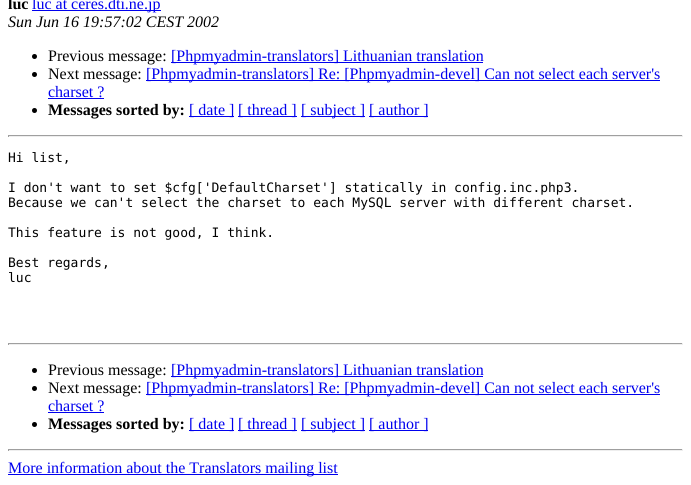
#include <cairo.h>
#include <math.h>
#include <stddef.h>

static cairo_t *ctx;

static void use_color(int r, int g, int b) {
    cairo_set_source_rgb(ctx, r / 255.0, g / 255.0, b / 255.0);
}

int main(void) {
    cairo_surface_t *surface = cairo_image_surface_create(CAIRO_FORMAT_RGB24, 691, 485);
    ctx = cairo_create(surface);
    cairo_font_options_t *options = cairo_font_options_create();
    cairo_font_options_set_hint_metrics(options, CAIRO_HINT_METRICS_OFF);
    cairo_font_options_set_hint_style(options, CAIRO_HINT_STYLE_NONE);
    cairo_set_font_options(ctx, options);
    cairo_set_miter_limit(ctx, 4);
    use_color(255, 255, 255);
    cairo_paint(ctx);
    cairo_select_font_face(ctx, "Liberation Serif", CAIRO_FONT_SLANT_NORMAL, CAIRO_FONT_WEIGHT_BOLD);
    cairo_set_font_size(ctx, 16);
    use_color(0, 0, 0);
    cairo_move_to(ctx, 8, 9);
    cairo_show_text(ctx, "luc");
    use_color(0, 0, 238);
    cairo_rectangle(ctx, 32, 10, 129, 1);
    cairo_fill(ctx);
    cairo_select_font_face(ctx, "Liberation Serif", CAIRO_FONT_SLANT_NORMAL, CAIRO_FONT_WEIGHT_NORMAL);
    cairo_move_to(ctx, 32, 9);
    cairo_show_text(ctx, "luc at ceres.dti.ne.jp");
    cairo_select_font_face(ctx, "Liberation Serif", CAIRO_FONT_SLANT_ITALIC, CAIRO_FONT_WEIGHT_NORMAL);
    use_color(0, 0, 0);
    cairo_move_to(ctx, 8, 27);
    cairo_show_text(ctx, "Sun Jun 16 19:57:02 CEST 2002");
    cairo_new_path(ctx);
    cairo_arc(ctx, 34.5, 56.5, 2.5, 0, 2 * M_PI);
    cairo_fill(ctx);
    cairo_select_font_face(ctx, "Liberation Serif", CAIRO_FONT_SLANT_NORMAL, CAIRO_FONT_WEIGHT_NORMAL);
    cairo_move_to(ctx, 48, 61);
    cairo_show_text(ctx, "Previous message:");
    use_color(0, 0, 238);
    cairo_rectangle(ctx, 171, 62, 312, 1);
    cairo_fill(ctx);
    cairo_move_to(ctx, 171, 61);
    cairo_show_text(ctx, "[Phpmyadmin-translators] Lithuanian translation");
    use_color(0, 0, 0);
    cairo_new_path(ctx);
    cairo_arc(ctx, 34.5, 74.5, 2.5, 0, 2 * M_PI);
    cairo_fill(ctx);
    cairo_move_to(ctx, 48, 79);
    cairo_show_text(ctx, "Next message:");
    use_color(0, 0, 238);
    cairo_rectangle(ctx, 146, 80, 514, 1);
    cairo_fill(ctx);
    cairo_move_to(ctx, 146, 79);
    cairo_show_text(ctx, "[Phpmyadmin-translators] Re: [Phpmyadmin-devel] Can not select each server's");
    cairo_move_to(ctx, 48, 97);
    cairo_show_text(ctx, "charset ?");
    cairo_rectangle(ctx, 48, 98, 56, 1);
    cairo_fill(ctx);
    use_color(0, 0, 0);
    cairo_arc(ctx, 34.5, 110.5, 2.5, 0, 2 * M_PI);
    cairo_fill(ctx);
    cairo_select_font_face(ctx, "Liberation Serif", CAIRO_FONT_SLANT_NORMAL, CAIRO_FONT_WEIGHT_BOLD);
    cairo_move_to(ctx, 48, 115);
    cairo_show_text(ctx, "Messages sorted by:");
    use_color(0, 0, 238);
    cairo_rectangle(ctx, 189, 116, 45, 1);
    cairo_fill(ctx);
    cairo_select_font_face(ctx, "Liberation Serif", CAIRO_FONT_SLANT_NORMAL, CAIRO_FONT_WEIGHT_NORMAL);
    cairo_move_to(ctx, 189, 115);
    cairo_show_text(ctx, "[ date ]");
    cairo_rectangle(ctx, 238, 116, 59, 1);
    cairo_fill(ctx);
    cairo_move_to(ctx, 238, 115);
    cairo_show_text(ctx, "[ thread ]");
    cairo_rectangle(ctx, 301, 116, 64, 1);
    cairo_fill(ctx);
    cairo_move_to(ctx, 301, 115);
    cairo_show_text(ctx, "[ subject ]");
    cairo_rectangle(ctx, 369, 116, 59, 1);
    cairo_fill(ctx);
    cairo_move_to(ctx, 369, 115);
    cairo_show_text(ctx, "[ author ]");
    use_color(159, 159, 159);
    cairo_rectangle(ctx, 8, 135, 675, 1);
    cairo_fill(ctx);
    use_color(238, 238, 238);
    cairo_rectangle(ctx, 682, 135, 1, 2);
    cairo_fill(ctx);
    cairo_rectangle(ctx, 8, 136, 675, 1);
    cairo_fill(ctx);
    use_color(159, 159, 159);
    cairo_rectangle(ctx, 8, 135, 1, 2);
    cairo_fill(ctx);
    cairo_select_font_face(ctx, "DejaVu Sans Mono", CAIRO_FONT_SLANT_NORMAL, CAIRO_FONT_WEIGHT_NORMAL);
    cairo_set_font_size(ctx, 13);
    use_color(0, 0, 0);
    cairo_move_to(ctx, 8, 162);
    cairo_show_text(ctx, "Hi list,");
    cairo_move_to(ctx, 8, 192);
    cairo_show_text(ctx, "I don't want to set $cfg['DefaultCharset'] statically in config.inc.php3.");
    cairo_move_to(ctx, 8, 207);
    cairo_show_text(ctx, "Because we can't select the charset to each MySQL server with different charset.");
    cairo_move_to(ctx, 8, 237);
    cairo_show_text(ctx, "This feature is not good, I think.");
    cairo_move_to(ctx, 8, 267);
    cairo_show_text(ctx, "Best regards,");
    cairo_move_to(ctx, 8, 282);
    cairo_show_text(ctx, "luc");
    use_color(159, 159, 159);
    cairo_rectangle(ctx, 8, 343, 675, 1);
    cairo_fill(ctx);
    use_color(238, 238, 238);
    cairo_rectangle(ctx, 682, 343, 1, 2);
    cairo_fill(ctx);
    cairo_rectangle(ctx, 8, 344, 675, 1);
    cairo_fill(ctx);
    use_color(159, 159, 159);
    cairo_rectangle(ctx, 8, 343, 1, 2);
    cairo_fill(ctx);
    use_color(0, 0, 0);
    cairo_arc(ctx, 34.5, 370.5, 2.5, 0, 2 * M_PI);
    cairo_fill(ctx);
    cairo_select_font_face(ctx, "Liberation Serif", CAIRO_FONT_SLANT_NORMAL, CAIRO_FONT_WEIGHT_NORMAL);
    cairo_set_font_size(ctx, 16);
    cairo_move_to(ctx, 48, 375);
    cairo_show_text(ctx, "Previous message:");
    use_color(0, 0, 238);
    cairo_rectangle(ctx, 171, 376, 312, 1);
    cairo_fill(ctx);
    cairo_move_to(ctx, 171, 375);
    cairo_show_text(ctx, "[Phpmyadmin-translators] Lithuanian translation");
    use_color(0, 0, 0);
    cairo_new_path(ctx);
    cairo_arc(ctx, 34.5, 388.5, 2.5, 0, 2 * M_PI);
    cairo_fill(ctx);
    cairo_move_to(ctx, 48, 393);
    cairo_show_text(ctx, "Next message:");
    use_color(0, 0, 238);
    cairo_rectangle(ctx, 146, 394, 514, 1);
    cairo_fill(ctx);
    cairo_move_to(ctx, 146, 393);
    cairo_show_text(ctx, "[Phpmyadmin-translators] Re: [Phpmyadmin-devel] Can not select each server's");
    cairo_move_to(ctx, 48, 411);
    cairo_show_text(ctx, "charset ?");
    cairo_rectangle(ctx, 48, 412, 56, 1);
    cairo_fill(ctx);
    use_color(0, 0, 0);
    cairo_arc(ctx, 34.5, 424.5, 2.5, 0, 2 * M_PI);
    cairo_fill(ctx);
    cairo_select_font_face(ctx, "Liberation Serif", CAIRO_FONT_SLANT_NORMAL, CAIRO_FONT_WEIGHT_BOLD);
    cairo_move_to(ctx, 48, 429);
    cairo_show_text(ctx, "Messages sorted by:");
    use_color(0, 0, 238);
    cairo_rectangle(ctx, 189, 430, 45, 1);
    cairo_fill(ctx);
    cairo_select_font_face(ctx, "Liberation Serif", CAIRO_FONT_SLANT_NORMAL, CAIRO_FONT_WEIGHT_NORMAL);
    cairo_move_to(ctx, 189, 429);
    cairo_show_text(ctx, "[ date ]");
    cairo_rectangle(ctx, 238, 430, 59, 1);
    cairo_fill(ctx);
    cairo_move_to(ctx, 238, 429);
    cairo_show_text(ctx, "[ thread ]");
    cairo_rectangle(ctx, 301, 430, 64, 1);
    cairo_fill(ctx);
    cairo_move_to(ctx, 301, 429);
    cairo_show_text(ctx, "[ subject ]");
    cairo_rectangle(ctx, 369, 430, 59, 1);
    cairo_fill(ctx);
    cairo_move_to(ctx, 369, 429);
    cairo_show_text(ctx, "[ author ]");
    use_color(159, 159, 159);
    cairo_rectangle(ctx, 8, 449, 675, 1);
    cairo_fill(ctx);
    use_color(238, 238, 238);
    cairo_rectangle(ctx, 682, 449, 1, 2);
    cairo_fill(ctx);
    cairo_rectangle(ctx, 8, 450, 675, 1);
    cairo_fill(ctx);
    use_color(159, 159, 159);
    cairo_rectangle(ctx, 8, 449, 1, 2);
    cairo_fill(ctx);
    use_color(0, 0, 238);
    cairo_rectangle(ctx, 8, 474, 330, 1);
    cairo_fill(ctx);
    cairo_move_to(ctx, 8, 473);
    cairo_show_text(ctx, "More information about the Translators mailing list");
    cairo_surface_write_to_png(surface, "result.png");
    cairo_font_options_destroy(options);
    cairo_destroy(ctx);
    cairo_surface_destroy(surface);
    return 0;
}
